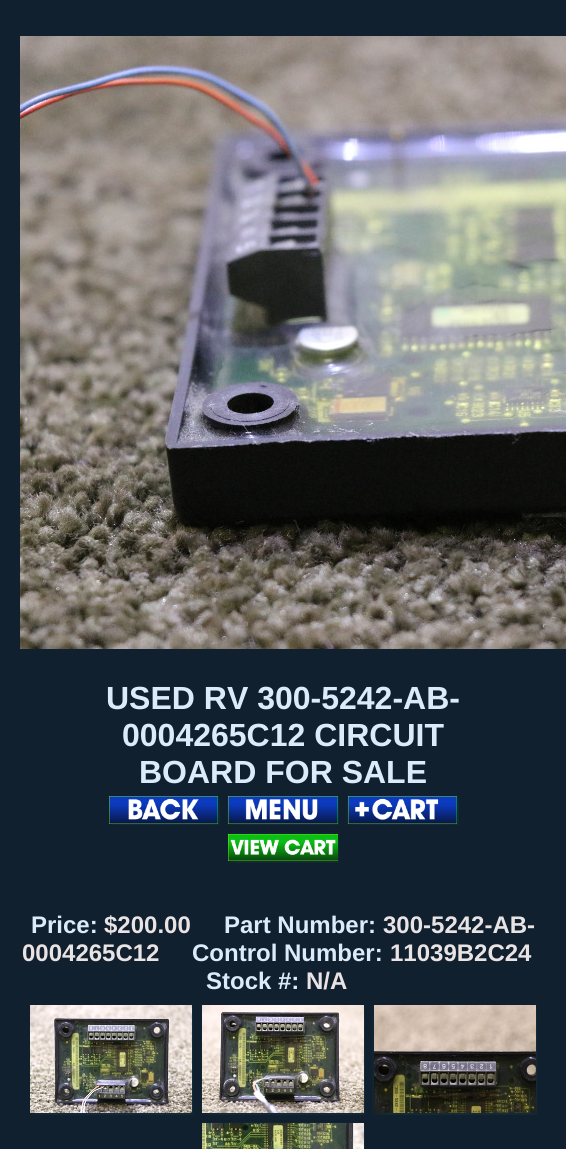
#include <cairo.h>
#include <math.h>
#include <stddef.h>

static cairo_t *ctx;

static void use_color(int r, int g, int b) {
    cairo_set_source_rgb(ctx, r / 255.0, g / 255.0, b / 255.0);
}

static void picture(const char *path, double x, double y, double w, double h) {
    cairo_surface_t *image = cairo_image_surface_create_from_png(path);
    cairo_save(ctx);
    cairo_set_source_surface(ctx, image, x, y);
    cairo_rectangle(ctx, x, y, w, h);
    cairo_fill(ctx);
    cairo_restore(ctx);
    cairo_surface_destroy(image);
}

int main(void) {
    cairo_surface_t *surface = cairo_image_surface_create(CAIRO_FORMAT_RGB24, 566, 1149);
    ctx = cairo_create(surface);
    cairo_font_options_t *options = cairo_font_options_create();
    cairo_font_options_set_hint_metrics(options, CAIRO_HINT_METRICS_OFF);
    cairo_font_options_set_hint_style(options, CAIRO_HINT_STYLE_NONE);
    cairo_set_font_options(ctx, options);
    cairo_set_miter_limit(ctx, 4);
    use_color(16, 32, 47);
    cairo_paint(ctx);
    picture("img1.png", 20, 36, 546, 613);
    cairo_select_font_face(ctx, "Liberation Sans", CAIRO_FONT_SLANT_NORMAL, CAIRO_FONT_WEIGHT_BOLD);
    cairo_set_font_size(ctx, 32);
    use_color(218, 235, 249);
    cairo_move_to(ctx, 106, 709);
    cairo_show_text(ctx, "USED RV 300-5242-AB-");
    cairo_move_to(ctx, 122, 746);
    cairo_show_text(ctx, "0004265C12 CIRCUIT");
    cairo_move_to(ctx, 139, 783);
    cairo_show_text(ctx, "BOARD FOR SALE");
    picture("img2.png", 109, 796, 111, 29);
    picture("img3.png", 227, 796, 112, 29);
    picture("img4.png", 346, 796, 113, 29);
    picture("img5.png", 228, 832, 111, 31);
    cairo_set_font_size(ctx, 24);
    cairo_move_to(ctx, 31, 933);
    cairo_show_text(ctx, "Price:");
    use_color(234, 227, 227);
    cairo_move_to(ctx, 104, 933);
    cairo_show_text(ctx, "$200.00");
    use_color(218, 235, 249);
    cairo_move_to(ctx, 224, 933);
    cairo_show_text(ctx, "Part Number:");
    use_color(234, 227, 227);
    cairo_move_to(ctx, 383, 933);
    cairo_show_text(ctx, "300-5242-AB-");
    cairo_move_to(ctx, 22, 961);
    cairo_show_text(ctx, "0004265C12");
    use_color(218, 235, 249);
    cairo_move_to(ctx, 192, 961);
    cairo_show_text(ctx, "Control Number:");
    use_color(234, 227, 227);
    cairo_move_to(ctx, 390, 961);
    cairo_show_text(ctx, "11039B2C24");
    use_color(218, 235, 249);
    cairo_move_to(ctx, 206, 989);
    cairo_show_text(ctx, "Stock #:");
    use_color(234, 227, 227);
    cairo_move_to(ctx, 306, 989);
    cairo_show_text(ctx, "N/A");
    picture("img6.png", 30, 1005, 163, 110);
    picture("img7.png", 201, 1005, 164, 110);
    picture("img8.png", 372, 1005, 165, 110);
    picture("img9.png", 202, 1122, 163, 27);
    cairo_surface_write_to_png(surface, "result.png");
    cairo_font_options_destroy(options);
    cairo_destroy(ctx);
    cairo_surface_destroy(surface);
    return 0;
}
